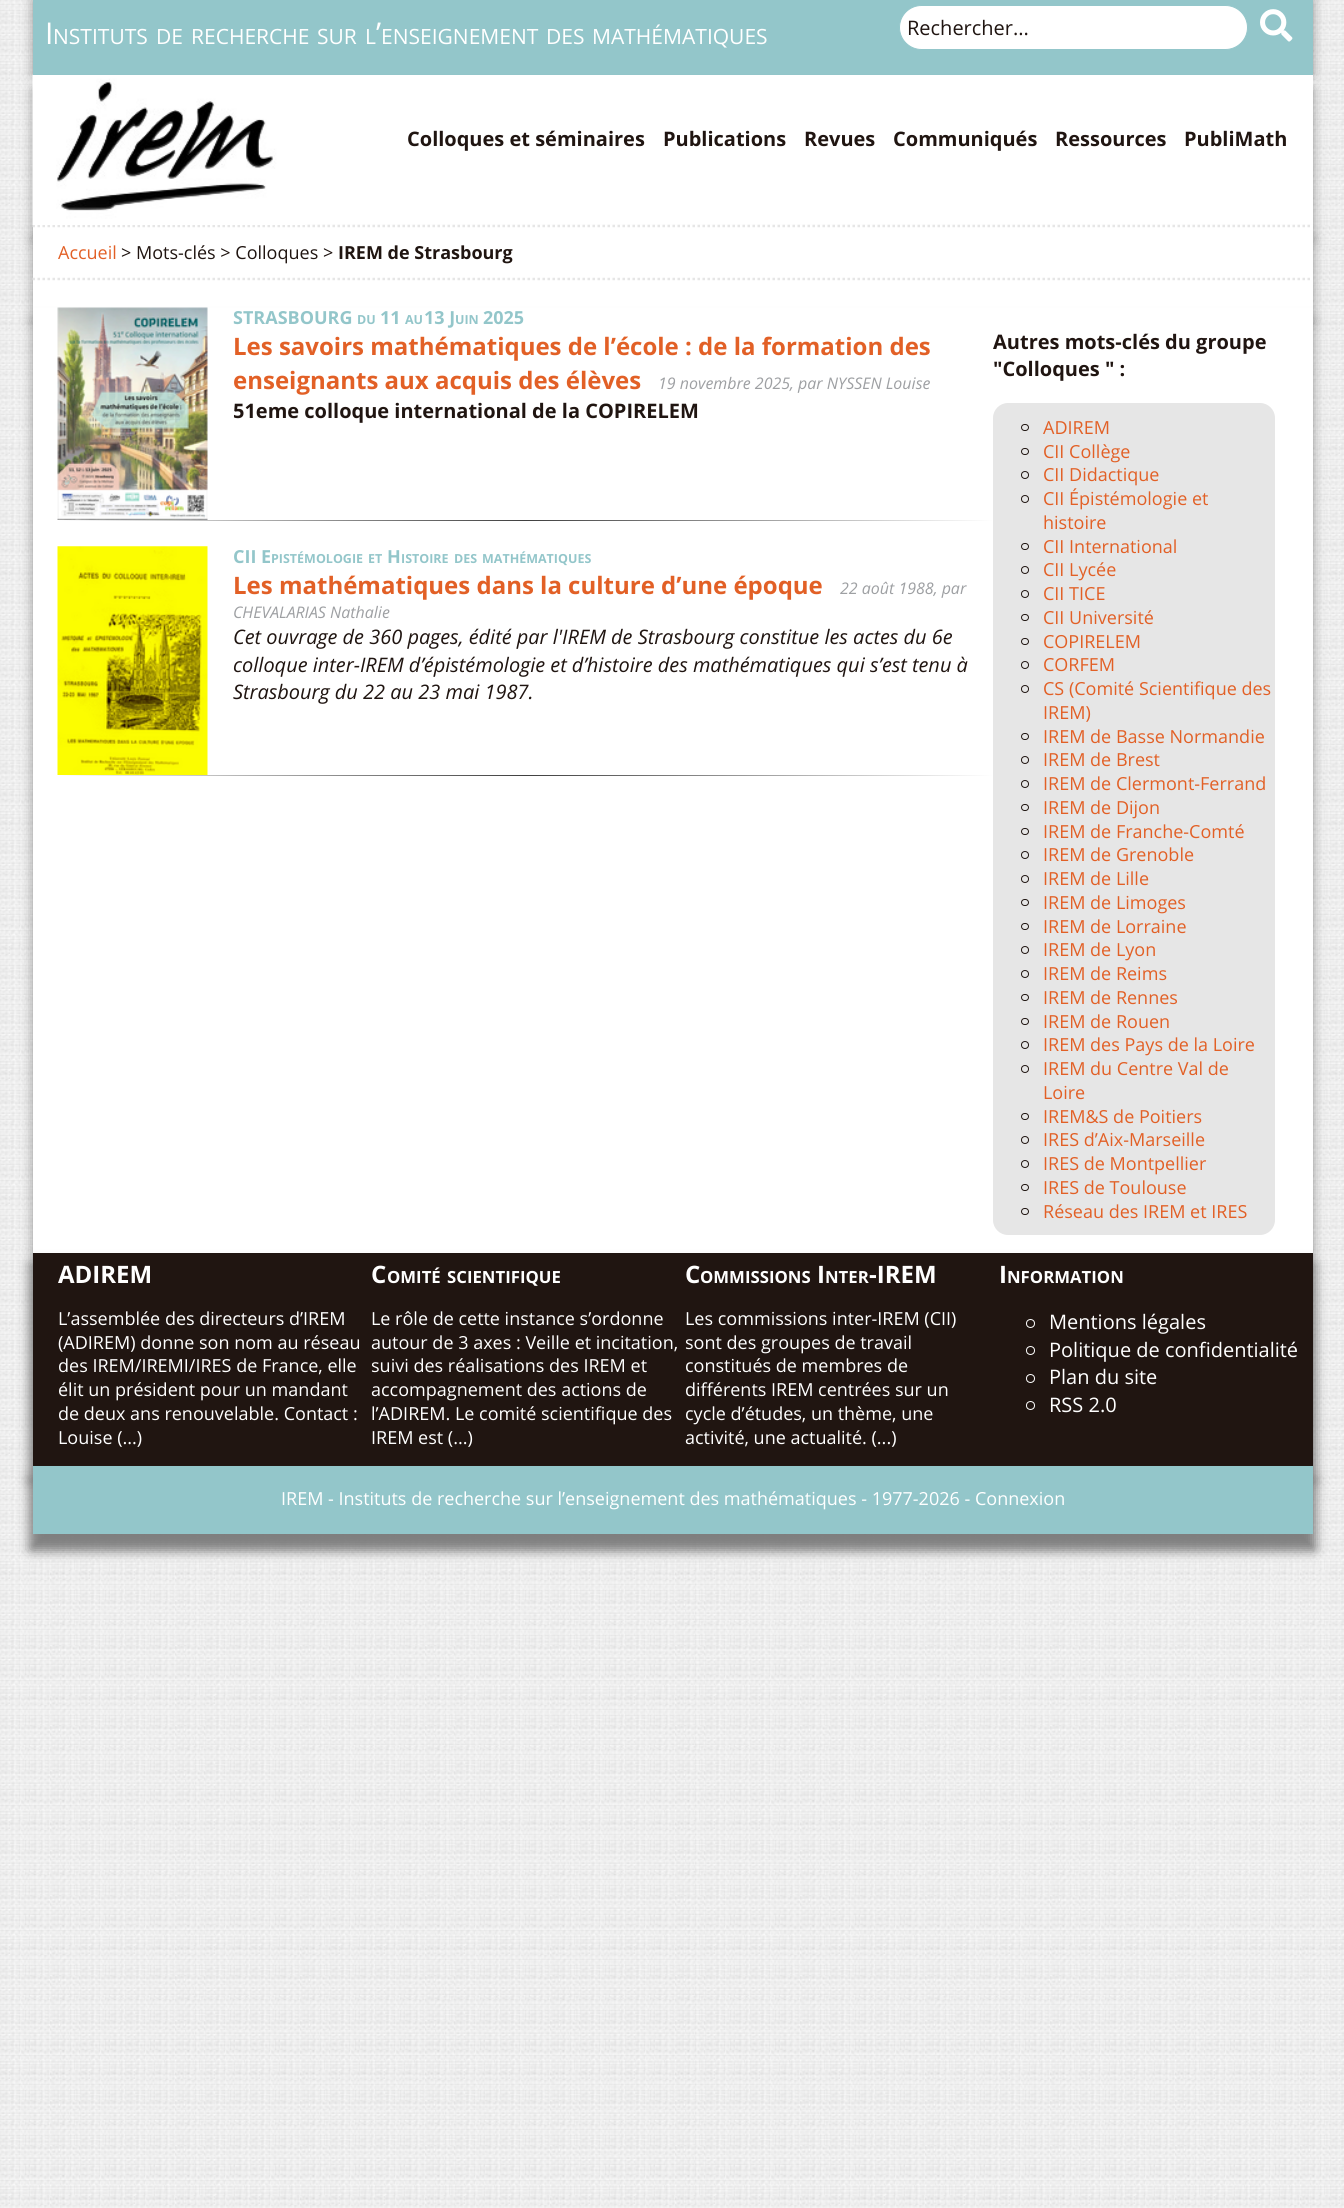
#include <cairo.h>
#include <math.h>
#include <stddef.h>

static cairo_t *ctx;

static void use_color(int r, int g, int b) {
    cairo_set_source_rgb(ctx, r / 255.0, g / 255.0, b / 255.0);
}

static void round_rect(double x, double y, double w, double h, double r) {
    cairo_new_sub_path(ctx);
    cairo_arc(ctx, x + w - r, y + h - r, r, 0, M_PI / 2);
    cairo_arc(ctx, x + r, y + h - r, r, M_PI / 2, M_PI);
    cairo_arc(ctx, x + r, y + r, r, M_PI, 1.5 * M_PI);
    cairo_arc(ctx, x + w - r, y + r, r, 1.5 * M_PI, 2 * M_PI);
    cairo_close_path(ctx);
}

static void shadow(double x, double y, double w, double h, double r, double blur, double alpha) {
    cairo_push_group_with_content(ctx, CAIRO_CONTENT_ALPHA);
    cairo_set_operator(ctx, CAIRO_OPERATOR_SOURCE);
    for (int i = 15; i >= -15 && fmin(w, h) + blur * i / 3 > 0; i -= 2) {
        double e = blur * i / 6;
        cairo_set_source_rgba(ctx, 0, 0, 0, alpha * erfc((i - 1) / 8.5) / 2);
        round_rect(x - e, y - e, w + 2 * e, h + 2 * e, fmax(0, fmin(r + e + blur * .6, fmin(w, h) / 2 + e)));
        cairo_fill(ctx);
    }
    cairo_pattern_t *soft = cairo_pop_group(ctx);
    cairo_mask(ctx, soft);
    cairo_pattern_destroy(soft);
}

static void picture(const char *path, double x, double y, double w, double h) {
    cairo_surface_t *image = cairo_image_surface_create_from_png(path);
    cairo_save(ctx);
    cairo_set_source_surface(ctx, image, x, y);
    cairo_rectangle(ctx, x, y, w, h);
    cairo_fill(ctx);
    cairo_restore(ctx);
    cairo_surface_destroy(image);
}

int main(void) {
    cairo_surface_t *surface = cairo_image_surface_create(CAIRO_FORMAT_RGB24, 1344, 2208);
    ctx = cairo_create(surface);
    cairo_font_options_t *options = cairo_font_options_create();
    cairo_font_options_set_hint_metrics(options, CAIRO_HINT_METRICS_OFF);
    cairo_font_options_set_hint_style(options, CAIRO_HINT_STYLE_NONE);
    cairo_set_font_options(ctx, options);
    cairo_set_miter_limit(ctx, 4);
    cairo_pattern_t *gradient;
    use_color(255, 255, 255);
    cairo_paint(ctx);
    picture("img1.png", 0, 0, 1344, 2208);
    use_color(119, 119, 119);
    shadow(33, 0, 1280, 75, 0, 6, 0.75);
    use_color(147, 198, 202);
    cairo_rectangle(ctx, 33, 0, 1280, 75);
    cairo_fill(ctx);
    cairo_select_font_face(ctx, "Open Sans", CAIRO_FONT_SLANT_NORMAL, CAIRO_FONT_WEIGHT_NORMAL);
    cairo_set_font_size(ctx, 30);
    use_color(255, 255, 255);
    cairo_move_to(ctx, 45, 44);
    cairo_show_text(ctx, "I");
    cairo_set_font_size(ctx, 21);
    cairo_move_to(ctx, 53, 44);
    cairo_show_text(ctx, "NSTITUTS");
    cairo_move_to(ctx, 156, 44);
    cairo_show_text(ctx, "DE");
    cairo_move_to(ctx, 191, 44);
    cairo_show_text(ctx, "RECHERCHE");
    cairo_move_to(ctx, 317, 44);
    cairo_show_text(ctx, "SUR");
    cairo_move_to(ctx, 365, 44);
    cairo_show_text(ctx, "L");
    cairo_set_font_size(ctx, 30);
    cairo_move_to(ctx, 376, 44);
    cairo_show_text(ctx, "’");
    cairo_set_font_size(ctx, 21);
    cairo_move_to(ctx, 381, 44);
    cairo_show_text(ctx, "ENSEIGNEMENT");
    cairo_move_to(ctx, 546, 44);
    cairo_show_text(ctx, "DES");
    cairo_move_to(ctx, 592, 44);
    cairo_show_text(ctx, "MATHÉMATIQUES");
    round_rect(899.5, 5.5, 348, 44, 22);
    cairo_fill_preserve(ctx);
    use_color(147, 198, 202);
    cairo_set_line_width(ctx, 1);
    cairo_stroke(ctx);
    cairo_set_font_size(ctx, 20);
    use_color(32, 21, 17);
    cairo_move_to(ctx, 907, 35);
    cairo_show_text(ctx, "Rechercher...");
    picture("img2.png", 1260, 9, 33, 33);
    use_color(119, 119, 119);
    shadow(33, 89, 1280, 150, 0, 6, 0.75);
    use_color(255, 255, 255);
    cairo_rectangle(ctx, 305, 75, 1008, 150);
    cairo_fill(ctx);
    use_color(119, 119, 119);
    shadow(33, 239, 1280, 82, 0, 6, 0.75);
    use_color(255, 255, 255);
    cairo_rectangle(ctx, 33, 225, 1280, 83);
    cairo_fill(ctx);
    cairo_new_path(ctx);
    cairo_move_to(ctx, 32.5, 226);
    cairo_line_to(ctx, 1312.5, 226);
    use_color(230, 230, 230);
    cairo_set_line_width(ctx, 2.5);
    cairo_set_dash(ctx, (double[]){2.5, 2.5}, 2, 0);
    cairo_stroke(ctx);
    picture("img3.png", 32, 75, 273, 150);
    cairo_select_font_face(ctx, "Open Sans", CAIRO_FONT_SLANT_NORMAL, CAIRO_FONT_WEIGHT_BOLD);
    use_color(32, 21, 17);
    cairo_move_to(ctx, 407, 146);
    cairo_show_text(ctx, "Colloques et séminaires");
    cairo_move_to(ctx, 663, 146);
    cairo_show_text(ctx, "Publications");
    cairo_move_to(ctx, 804, 146);
    cairo_show_text(ctx, "Revues");
    cairo_move_to(ctx, 893, 146);
    cairo_show_text(ctx, "Communiqués");
    cairo_move_to(ctx, 1055, 146);
    cairo_show_text(ctx, "Ressources");
    cairo_move_to(ctx, 1184, 146);
    cairo_show_text(ctx, "PubliMath");
    cairo_new_path(ctx);
    cairo_move_to(ctx, 32.5, 279);
    cairo_line_to(ctx, 1312.5, 279);
    use_color(230, 230, 230);
    cairo_stroke(ctx);
    cairo_select_font_face(ctx, "Open Sans", CAIRO_FONT_SLANT_NORMAL, CAIRO_FONT_WEIGHT_NORMAL);
    cairo_set_font_size(ctx, 18);
    use_color(226, 96, 38);
    cairo_move_to(ctx, 58, 259);
    cairo_show_text(ctx, "Accueil");
    use_color(32, 21, 17);
    cairo_move_to(ctx, 121, 259);
    cairo_show_text(ctx, "> Mots-clés > Colloques >");
    cairo_select_font_face(ctx, "Open Sans", CAIRO_FONT_SLANT_NORMAL, CAIRO_FONT_WEIGHT_BOLD);
    cairo_move_to(ctx, 338, 259);
    cairo_show_text(ctx, "IREM de Strasbourg");
    use_color(119, 119, 119);
    shadow(33, 321, 1280, 1227, 0, 6, 0.75);
    use_color(255, 255, 255);
    cairo_rectangle(ctx, 33, 308, 1280, 945);
    cairo_fill(ctx);
    picture("img4.png", 57, 307, 151, 213);
    use_color(147, 198, 202);
    cairo_move_to(ctx, 233, 324);
    cairo_show_text(ctx, "STRASBOURG");
    cairo_set_font_size(ctx, 12.5);
    cairo_move_to(ctx, 357, 324);
    cairo_show_text(ctx, "DU");
    cairo_set_font_size(ctx, 18);
    cairo_move_to(ctx, 380, 324);
    cairo_show_text(ctx, "11");
    cairo_set_font_size(ctx, 12.5);
    cairo_move_to(ctx, 405, 324);
    cairo_show_text(ctx, "AU");
    cairo_set_font_size(ctx, 18);
    cairo_move_to(ctx, 424, 324);
    cairo_show_text(ctx, "13 J");
    cairo_set_font_size(ctx, 12.5);
    cairo_move_to(ctx, 455, 324);
    cairo_show_text(ctx, "UIN");
    cairo_set_font_size(ctx, 18);
    cairo_move_to(ctx, 483, 324);
    cairo_show_text(ctx, "2025");
    cairo_set_font_size(ctx, 24);
    use_color(226, 96, 38);
    cairo_move_to(ctx, 233, 355);
    cairo_show_text(ctx, "Les savoirs mathématiques de l’école : de la formation des");
    cairo_move_to(ctx, 233, 389);
    cairo_show_text(ctx, "enseignants aux acquis des élèves");
    cairo_select_font_face(ctx, "Open Sans", CAIRO_FONT_SLANT_ITALIC, CAIRO_FONT_WEIGHT_NORMAL);
    cairo_set_font_size(ctx, 16);
    use_color(158, 160, 163);
    cairo_move_to(ctx, 658, 389);
    cairo_show_text(ctx, "19 novembre 2025, par NYSSEN Louise");
    cairo_select_font_face(ctx, "Open Sans", CAIRO_FONT_SLANT_NORMAL, CAIRO_FONT_WEIGHT_BOLD);
    cairo_set_font_size(ctx, 20);
    use_color(32, 21, 17);
    cairo_move_to(ctx, 233, 418);
    cairo_show_text(ctx, "51eme colloque international de la COPIRELEM");
    gradient = cairo_pattern_create_linear(58, 521, 993, 521);
    cairo_pattern_add_color_stop_rgba(gradient, 0, 1, 1, 1, 1);
    cairo_pattern_add_color_stop_rgba(gradient, 0.5, 0.251, 0.251, 0.251, 1);
    cairo_pattern_add_color_stop_rgba(gradient, 1, 1, 1, 1, 1);
    cairo_set_source(ctx, gradient);
    cairo_pattern_destroy(gradient);
    cairo_rectangle(ctx, 58, 520, 935, 1);
    cairo_fill(ctx);
    picture("img5.png", 57, 546, 151, 229);
    cairo_set_font_size(ctx, 18);
    use_color(147, 198, 202);
    cairo_move_to(ctx, 233, 563);
    cairo_show_text(ctx, "CII E");
    cairo_set_font_size(ctx, 12.5);
    cairo_move_to(ctx, 271, 563);
    cairo_show_text(ctx, "PISTÉMOLOGIE");
    cairo_move_to(ctx, 368, 563);
    cairo_show_text(ctx, "ET");
    cairo_set_font_size(ctx, 18);
    cairo_move_to(ctx, 387, 563);
    cairo_show_text(ctx, "H");
    cairo_set_font_size(ctx, 12.5);
    cairo_move_to(ctx, 401, 563);
    cairo_show_text(ctx, "ISTOIRE");
    cairo_move_to(ctx, 454, 563);
    cairo_show_text(ctx, "DES");
    cairo_move_to(ctx, 482, 563);
    cairo_show_text(ctx, "MATHÉMATIQUES");
    cairo_set_font_size(ctx, 24);
    use_color(226, 96, 38);
    cairo_move_to(ctx, 233, 594);
    cairo_show_text(ctx, "Les mathématiques dans la culture d’une époque");
    cairo_select_font_face(ctx, "Open Sans", CAIRO_FONT_SLANT_ITALIC, CAIRO_FONT_WEIGHT_NORMAL);
    cairo_set_font_size(ctx, 16);
    use_color(158, 160, 163);
    cairo_move_to(ctx, 840, 594);
    cairo_show_text(ctx, "22 août 1988, par");
    cairo_move_to(ctx, 233, 618);
    cairo_show_text(ctx, "CHEVALARIAS Nathalie");
    cairo_set_font_size(ctx, 20);
    use_color(32, 21, 17);
    cairo_move_to(ctx, 233, 644);
    cairo_show_text(ctx, "Cet ouvrage de 360 pages, édité par l'IREM de Strasbourg constitue les actes du 6e");
    cairo_move_to(ctx, 233, 672);
    cairo_show_text(ctx, "colloque inter-IREM d’épistémologie et d’histoire des mathématiques qui s’est tenu à");
    cairo_move_to(ctx, 233, 699);
    cairo_show_text(ctx, "Strasbourg du 22 au 23 mai 1987.");
    gradient = cairo_pattern_create_linear(58, 776, 993, 776);
    cairo_pattern_add_color_stop_rgba(gradient, 0, 1, 1, 1, 1);
    cairo_pattern_add_color_stop_rgba(gradient, 0.5, 0.251, 0.251, 0.251, 1);
    cairo_pattern_add_color_stop_rgba(gradient, 1, 1, 1, 1, 1);
    cairo_set_source(ctx, gradient);
    cairo_pattern_destroy(gradient);
    cairo_rectangle(ctx, 58, 775, 935, 1);
    cairo_fill(ctx);
    cairo_select_font_face(ctx, "Open Sans", CAIRO_FONT_SLANT_NORMAL, CAIRO_FONT_WEIGHT_BOLD);
    use_color(32, 21, 17);
    cairo_move_to(ctx, 993, 349);
    cairo_show_text(ctx, "Autres mots-clés du groupe");
    cairo_move_to(ctx, 993, 376);
    cairo_show_text(ctx, "\"Colloques \" :");
    use_color(230, 230, 230);
    round_rect(993, 403, 282, 832, 15);
    cairo_fill(ctx);
    round_rect(1021.5, 424.5, 7, 6, 3);
    use_color(32, 21, 17);
    cairo_set_line_width(ctx, 1);
    cairo_set_dash(ctx, NULL, 0, 0);
    cairo_stroke(ctx);
    cairo_select_font_face(ctx, "Open Sans", CAIRO_FONT_SLANT_NORMAL, CAIRO_FONT_WEIGHT_NORMAL);
    cairo_set_font_size(ctx, 18);
    use_color(226, 96, 38);
    cairo_move_to(ctx, 1043, 434);
    cairo_show_text(ctx, "ADIREM");
    round_rect(1021.5, 448.5, 7, 6, 3);
    use_color(32, 21, 17);
    cairo_stroke(ctx);
    use_color(226, 96, 38);
    cairo_move_to(ctx, 1043, 458);
    cairo_show_text(ctx, "CII Collège");
    cairo_new_path(ctx);
    cairo_arc(ctx, 1025, 475, 3.5, 0, 2 * M_PI);
    use_color(32, 21, 17);
    cairo_stroke(ctx);
    use_color(226, 96, 38);
    cairo_move_to(ctx, 1043, 481);
    cairo_show_text(ctx, "CII Didactique");
    cairo_new_path(ctx);
    cairo_arc(ctx, 1025, 499, 3.5, 0, 2 * M_PI);
    use_color(32, 21, 17);
    cairo_stroke(ctx);
    use_color(226, 96, 38);
    cairo_move_to(ctx, 1043, 505);
    cairo_show_text(ctx, "CII Épistémologie et");
    cairo_move_to(ctx, 1043, 529);
    cairo_show_text(ctx, "histoire");
    round_rect(1021.5, 543.5, 7, 6, 3);
    use_color(32, 21, 17);
    cairo_stroke(ctx);
    use_color(226, 96, 38);
    cairo_move_to(ctx, 1043, 553);
    cairo_show_text(ctx, "CII International");
    cairo_new_path(ctx);
    cairo_arc(ctx, 1025, 570, 3.5, 0, 2 * M_PI);
    use_color(32, 21, 17);
    cairo_stroke(ctx);
    use_color(226, 96, 38);
    cairo_move_to(ctx, 1043, 576);
    cairo_show_text(ctx, "CII Lycée");
    cairo_new_path(ctx);
    cairo_arc(ctx, 1025, 594, 3.5, 0, 2 * M_PI);
    use_color(32, 21, 17);
    cairo_stroke(ctx);
    use_color(226, 96, 38);
    cairo_move_to(ctx, 1043, 600);
    cairo_show_text(ctx, "CII TICE");
    round_rect(1021.5, 614.5, 7, 6, 3);
    use_color(32, 21, 17);
    cairo_stroke(ctx);
    use_color(226, 96, 38);
    cairo_move_to(ctx, 1043, 624);
    cairo_show_text(ctx, "CII Université");
    round_rect(1021.5, 638.5, 7, 6, 3);
    use_color(32, 21, 17);
    cairo_stroke(ctx);
    use_color(226, 96, 38);
    cairo_move_to(ctx, 1043, 648);
    cairo_show_text(ctx, "COPIRELEM");
    cairo_new_path(ctx);
    cairo_arc(ctx, 1025, 665, 3.5, 0, 2 * M_PI);
    use_color(32, 21, 17);
    cairo_stroke(ctx);
    use_color(226, 96, 38);
    cairo_move_to(ctx, 1043, 671);
    cairo_show_text(ctx, "CORFEM");
    cairo_new_path(ctx);
    cairo_arc(ctx, 1025, 689, 3.5, 0, 2 * M_PI);
    use_color(32, 21, 17);
    cairo_stroke(ctx);
    use_color(226, 96, 38);
    cairo_move_to(ctx, 1043, 695);
    cairo_show_text(ctx, "CS (Comité Scientifique des");
    cairo_move_to(ctx, 1043, 719);
    cairo_show_text(ctx, "IREM)");
    round_rect(1021.5, 733.5, 7, 6, 3);
    use_color(32, 21, 17);
    cairo_stroke(ctx);
    use_color(226, 96, 38);
    cairo_move_to(ctx, 1043, 743);
    cairo_show_text(ctx, "IREM de Basse Normandie");
    cairo_new_path(ctx);
    cairo_arc(ctx, 1025, 760, 3.5, 0, 2 * M_PI);
    use_color(32, 21, 17);
    cairo_stroke(ctx);
    use_color(226, 96, 38);
    cairo_move_to(ctx, 1043, 766);
    cairo_show_text(ctx, "IREM de Brest");
    cairo_new_path(ctx);
    cairo_arc(ctx, 1025, 784, 3.5, 0, 2 * M_PI);
    use_color(32, 21, 17);
    cairo_stroke(ctx);
    use_color(226, 96, 38);
    cairo_move_to(ctx, 1043, 790);
    cairo_show_text(ctx, "IREM de Clermont-Ferrand");
    round_rect(1021.5, 804.5, 7, 6, 3);
    use_color(32, 21, 17);
    cairo_stroke(ctx);
    use_color(226, 96, 38);
    cairo_move_to(ctx, 1043, 814);
    cairo_show_text(ctx, "IREM de Dijon");
    round_rect(1021.5, 828.5, 7, 6, 3);
    use_color(32, 21, 17);
    cairo_stroke(ctx);
    use_color(226, 96, 38);
    cairo_move_to(ctx, 1043, 838);
    cairo_show_text(ctx, "IREM de Franche-Comté");
    cairo_new_path(ctx);
    cairo_arc(ctx, 1025, 855, 3.5, 0, 2 * M_PI);
    use_color(32, 21, 17);
    cairo_stroke(ctx);
    use_color(226, 96, 38);
    cairo_move_to(ctx, 1043, 861);
    cairo_show_text(ctx, "IREM de Grenoble");
    cairo_new_path(ctx);
    cairo_arc(ctx, 1025, 879, 3.5, 0, 2 * M_PI);
    use_color(32, 21, 17);
    cairo_stroke(ctx);
    use_color(226, 96, 38);
    cairo_move_to(ctx, 1043, 885);
    cairo_show_text(ctx, "IREM de Lille");
    round_rect(1021.5, 899.5, 7, 6, 3);
    use_color(32, 21, 17);
    cairo_stroke(ctx);
    use_color(226, 96, 38);
    cairo_move_to(ctx, 1043, 909);
    cairo_show_text(ctx, "IREM de Limoges");
    round_rect(1021.5, 923.5, 7, 6, 3);
    use_color(32, 21, 17);
    cairo_stroke(ctx);
    use_color(226, 96, 38);
    cairo_move_to(ctx, 1043, 933);
    cairo_show_text(ctx, "IREM de Lorraine");
    cairo_new_path(ctx);
    cairo_arc(ctx, 1025, 950, 3.5, 0, 2 * M_PI);
    use_color(32, 21, 17);
    cairo_stroke(ctx);
    use_color(226, 96, 38);
    cairo_move_to(ctx, 1043, 956);
    cairo_show_text(ctx, "IREM de Lyon");
    cairo_new_path(ctx);
    cairo_arc(ctx, 1025, 974, 3.5, 0, 2 * M_PI);
    use_color(32, 21, 17);
    cairo_stroke(ctx);
    use_color(226, 96, 38);
    cairo_move_to(ctx, 1043, 980);
    cairo_show_text(ctx, "IREM de Reims");
    round_rect(1021.5, 994.5, 7, 6, 3);
    use_color(32, 21, 17);
    cairo_stroke(ctx);
    use_color(226, 96, 38);
    cairo_move_to(ctx, 1043, 1004);
    cairo_show_text(ctx, "IREM de Rennes");
    round_rect(1021.5, 1018.5, 7, 6, 3);
    use_color(32, 21, 17);
    cairo_stroke(ctx);
    use_color(226, 96, 38);
    cairo_move_to(ctx, 1043, 1028);
    cairo_show_text(ctx, "IREM de Rouen");
    cairo_new_path(ctx);
    cairo_arc(ctx, 1025, 1045, 3.5, 0, 2 * M_PI);
    use_color(32, 21, 17);
    cairo_stroke(ctx);
    use_color(226, 96, 38);
    cairo_move_to(ctx, 1043, 1051);
    cairo_show_text(ctx, "IREM des Pays de la Loire");
    cairo_new_path(ctx);
    cairo_arc(ctx, 1025, 1069, 3.5, 0, 2 * M_PI);
    use_color(32, 21, 17);
    cairo_stroke(ctx);
    use_color(226, 96, 38);
    cairo_move_to(ctx, 1043, 1075);
    cairo_show_text(ctx, "IREM du Centre Val de");
    cairo_move_to(ctx, 1043, 1099);
    cairo_show_text(ctx, "Loire");
    round_rect(1021.5, 1113.5, 7, 6, 3);
    use_color(32, 21, 17);
    cairo_stroke(ctx);
    use_color(226, 96, 38);
    cairo_move_to(ctx, 1043, 1123);
    cairo_show_text(ctx, "IREM&S de Poitiers");
    cairo_new_path(ctx);
    cairo_arc(ctx, 1025, 1140, 3.5, 0, 2 * M_PI);
    use_color(32, 21, 17);
    cairo_stroke(ctx);
    use_color(226, 96, 38);
    cairo_move_to(ctx, 1043, 1146);
    cairo_show_text(ctx, "IRES d’Aix-Marseille");
    cairo_new_path(ctx);
    cairo_arc(ctx, 1025, 1164, 3.5, 0, 2 * M_PI);
    use_color(32, 21, 17);
    cairo_stroke(ctx);
    use_color(226, 96, 38);
    cairo_move_to(ctx, 1043, 1170);
    cairo_show_text(ctx, "IRES de Montpellier");
    round_rect(1021.5, 1184.5, 7, 6, 3);
    use_color(32, 21, 17);
    cairo_stroke(ctx);
    use_color(226, 96, 38);
    cairo_move_to(ctx, 1043, 1194);
    cairo_show_text(ctx, "IRES de Toulouse");
    round_rect(1021.5, 1208.5, 7, 6, 3);
    use_color(32, 21, 17);
    cairo_stroke(ctx);
    use_color(226, 96, 38);
    cairo_move_to(ctx, 1043, 1218);
    cairo_show_text(ctx, "Réseau des IREM et IRES");
    use_color(119, 119, 119);
    shadow(30, 1264, 1285, 219, 0, 6, 0.75);
    use_color(32, 21, 17);
    cairo_rectangle(ctx, 33, 1253, 1280, 213);
    cairo_fill(ctx);
    cairo_select_font_face(ctx, "Open Sans", CAIRO_FONT_SLANT_NORMAL, CAIRO_FONT_WEIGHT_BOLD);
    cairo_set_font_size(ctx, 24);
    use_color(255, 255, 255);
    cairo_move_to(ctx, 58, 1283);
    cairo_show_text(ctx, "ADIREM");
    cairo_select_font_face(ctx, "Open Sans", CAIRO_FONT_SLANT_NORMAL, CAIRO_FONT_WEIGHT_NORMAL);
    cairo_set_font_size(ctx, 18);
    cairo_move_to(ctx, 58, 1325);
    cairo_show_text(ctx, "L’assemblée des directeurs d’IREM");
    cairo_move_to(ctx, 58, 1349);
    cairo_show_text(ctx, "(ADIREM) donne son nom au réseau");
    cairo_move_to(ctx, 58, 1372);
    cairo_show_text(ctx, "des IREM/IREMI/IRES de France, elle");
    cairo_move_to(ctx, 58, 1396);
    cairo_show_text(ctx, "élit un président pour un mandant");
    cairo_move_to(ctx, 58, 1420);
    cairo_show_text(ctx, "de deux ans renouvelable. Contact :");
    cairo_move_to(ctx, 58, 1444);
    cairo_show_text(ctx, "Louise (...)");
    cairo_select_font_face(ctx, "Open Sans", CAIRO_FONT_SLANT_NORMAL, CAIRO_FONT_WEIGHT_BOLD);
    cairo_set_font_size(ctx, 24);
    cairo_move_to(ctx, 371, 1283);
    cairo_show_text(ctx, "C");
    cairo_set_font_size(ctx, 16.75);
    cairo_move_to(ctx, 387, 1283);
    cairo_show_text(ctx, "OMITÉ");
    cairo_move_to(ctx, 447, 1283);
    cairo_show_text(ctx, "SCIENTIFIQUE");
    cairo_select_font_face(ctx, "Open Sans", CAIRO_FONT_SLANT_NORMAL, CAIRO_FONT_WEIGHT_NORMAL);
    cairo_set_font_size(ctx, 18);
    cairo_move_to(ctx, 371, 1325);
    cairo_show_text(ctx, "Le rôle de cette instance s’ordonne");
    cairo_move_to(ctx, 371, 1349);
    cairo_show_text(ctx, "autour de 3 axes : Veille et incitation,");
    cairo_move_to(ctx, 371, 1372);
    cairo_show_text(ctx, "suivi des réalisations des IREM et");
    cairo_move_to(ctx, 371, 1396);
    cairo_show_text(ctx, "accompagnement des actions de");
    cairo_move_to(ctx, 371, 1420);
    cairo_show_text(ctx, "l’ADIREM. Le comité scientifique des");
    cairo_move_to(ctx, 371, 1444);
    cairo_show_text(ctx, "IREM est (...)");
    cairo_select_font_face(ctx, "Open Sans", CAIRO_FONT_SLANT_NORMAL, CAIRO_FONT_WEIGHT_BOLD);
    cairo_set_font_size(ctx, 24);
    cairo_move_to(ctx, 685, 1283);
    cairo_show_text(ctx, "C");
    cairo_set_font_size(ctx, 16.75);
    cairo_move_to(ctx, 700, 1283);
    cairo_show_text(ctx, "OMMISSIONS");
    cairo_set_font_size(ctx, 24);
    cairo_move_to(ctx, 817, 1283);
    cairo_show_text(ctx, "I");
    cairo_set_font_size(ctx, 16.75);
    cairo_move_to(ctx, 825, 1283);
    cairo_show_text(ctx, "NTER");
    cairo_set_font_size(ctx, 24);
    cairo_move_to(ctx, 869, 1283);
    cairo_show_text(ctx, "-IREM");
    cairo_select_font_face(ctx, "Open Sans", CAIRO_FONT_SLANT_NORMAL, CAIRO_FONT_WEIGHT_NORMAL);
    cairo_set_font_size(ctx, 18);
    cairo_move_to(ctx, 685, 1325);
    cairo_show_text(ctx, "Les commissions inter-IREM (CII)");
    cairo_move_to(ctx, 685, 1349);
    cairo_show_text(ctx, "sont des groupes de travail");
    cairo_move_to(ctx, 685, 1372);
    cairo_show_text(ctx, "constitués de membres de");
    cairo_move_to(ctx, 685, 1396);
    cairo_show_text(ctx, "différents IREM centrées sur un");
    cairo_move_to(ctx, 685, 1420);
    cairo_show_text(ctx, "cycle d’études, un thème, une");
    cairo_move_to(ctx, 685, 1444);
    cairo_show_text(ctx, "activité, une actualité. (...)");
    cairo_select_font_face(ctx, "Open Sans", CAIRO_FONT_SLANT_NORMAL, CAIRO_FONT_WEIGHT_BOLD);
    cairo_set_font_size(ctx, 24);
    cairo_move_to(ctx, 999, 1283);
    cairo_show_text(ctx, "I");
    cairo_set_font_size(ctx, 16.75);
    cairo_move_to(ctx, 1007, 1283);
    cairo_show_text(ctx, "NFORMATION");
    cairo_new_path(ctx);
    cairo_arc(ctx, 1030.5, 1323.5, 4, 0, 2 * M_PI);
    cairo_stroke(ctx);
    cairo_select_font_face(ctx, "Open Sans", CAIRO_FONT_SLANT_NORMAL, CAIRO_FONT_WEIGHT_NORMAL);
    cairo_set_font_size(ctx, 20);
    cairo_move_to(ctx, 1049, 1329);
    cairo_show_text(ctx, "Mentions légales");
    cairo_new_path(ctx);
    cairo_arc(ctx, 1030.5, 1350.5, 4, 0, 2 * M_PI);
    cairo_stroke(ctx);
    cairo_move_to(ctx, 1049, 1357);
    cairo_show_text(ctx, "Politique de confidentialité");
    cairo_new_path(ctx);
    cairo_arc(ctx, 1030.5, 1378.5, 4, 0, 2 * M_PI);
    cairo_stroke(ctx);
    cairo_move_to(ctx, 1049, 1384);
    cairo_show_text(ctx, "Plan du site");
    cairo_new_path(ctx);
    cairo_arc(ctx, 1030.5, 1405.5, 4, 0, 2 * M_PI);
    cairo_stroke(ctx);
    cairo_move_to(ctx, 1049, 1412);
    cairo_show_text(ctx, "RSS 2.0");
    use_color(119, 119, 119);
    shadow(30, 1478, 1285, 72, 0, 6, 0.75);
    use_color(147, 198, 202);
    cairo_rectangle(ctx, 33, 1466, 1280, 68);
    cairo_fill(ctx);
    cairo_set_font_size(ctx, 18);
    use_color(255, 255, 255);
    cairo_move_to(ctx, 281, 1505);
    cairo_show_text(ctx, "IREM - Instituts de recherche sur l’enseignement des mathématiques - 1977-2026 - Connexion");
    cairo_surface_write_to_png(surface, "result.png");
    cairo_font_options_destroy(options);
    cairo_destroy(ctx);
    cairo_surface_destroy(surface);
    return 0;
}
